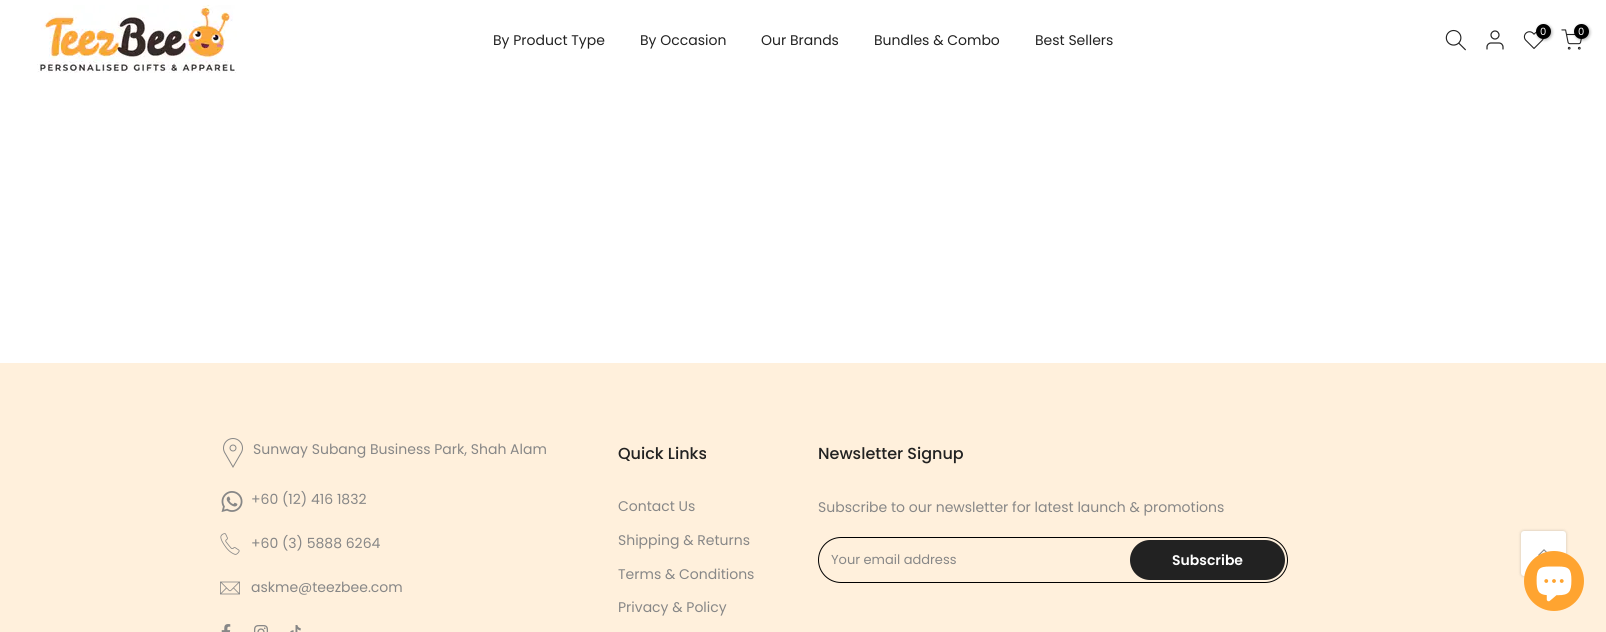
#include <cairo.h>
#include <math.h>
#include <stddef.h>

static cairo_t *ctx;

static void use_color(int r, int g, int b) {
    cairo_set_source_rgb(ctx, r / 255.0, g / 255.0, b / 255.0);
}

static void round_rect(double x, double y, double w, double h, double r) {
    cairo_new_sub_path(ctx);
    cairo_arc(ctx, x + w - r, y + h - r, r, 0, M_PI / 2);
    cairo_arc(ctx, x + r, y + h - r, r, M_PI / 2, M_PI);
    cairo_arc(ctx, x + r, y + r, r, M_PI, 1.5 * M_PI);
    cairo_arc(ctx, x + w - r, y + r, r, 1.5 * M_PI, 2 * M_PI);
    cairo_close_path(ctx);
}

static void shadow(double x, double y, double w, double h, double r, double blur, double alpha) {
    cairo_push_group_with_content(ctx, CAIRO_CONTENT_ALPHA);
    cairo_set_operator(ctx, CAIRO_OPERATOR_SOURCE);
    for (int i = 15; i >= -15 && fmin(w, h) + blur * i / 3 > 0; i -= 2) {
        double e = blur * i / 6;
        cairo_set_source_rgba(ctx, 0, 0, 0, alpha * erfc((i - 1) / 8.5) / 2);
        round_rect(x - e, y - e, w + 2 * e, h + 2 * e, fmax(0, fmin(r + e + blur * .6, fmin(w, h) / 2 + e)));
        cairo_fill(ctx);
    }
    cairo_pattern_t *soft = cairo_pop_group(ctx);
    cairo_mask(ctx, soft);
    cairo_pattern_destroy(soft);
}

static void picture(const char *path, double x, double y, double w, double h) {
    cairo_surface_t *image = cairo_image_surface_create_from_png(path);
    cairo_save(ctx);
    cairo_set_source_surface(ctx, image, x, y);
    cairo_rectangle(ctx, x, y, w, h);
    cairo_fill(ctx);
    cairo_restore(ctx);
    cairo_surface_destroy(image);
}

int main(void) {
    cairo_surface_t *surface = cairo_image_surface_create(CAIRO_FORMAT_RGB24, 1606, 632);
    ctx = cairo_create(surface);
    cairo_font_options_t *options = cairo_font_options_create();
    cairo_font_options_set_hint_metrics(options, CAIRO_HINT_METRICS_OFF);
    cairo_font_options_set_hint_style(options, CAIRO_HINT_STYLE_NONE);
    cairo_set_font_options(ctx, options);
    cairo_set_miter_limit(ctx, 4);
    use_color(255, 255, 255);
    cairo_paint(ctx);
    picture("img1.png", 37, 5, 200, 68);
    picture("img2.png", 1445, 29, 21, 22);
    picture("img3.png", 1486, 30, 18, 20);
    picture("img4.png", 1523, 31, 21, 18);
    use_color(0, 0, 0);
    shadow(1537, 25, 15, 15, 7.5, 1.5, 0.3);
    use_color(0, 0, 0);
    cairo_arc(ctx, 1543.5, 31.5, 7.5, 0, 2 * M_PI);
    cairo_fill(ctx);
    cairo_select_font_face(ctx, "Poppins", CAIRO_FONT_SLANT_NORMAL, CAIRO_FONT_WEIGHT_NORMAL);
    cairo_set_font_size(ctx, 10);
    use_color(255, 255, 255);
    cairo_move_to(ctx, 1540, 35);
    cairo_show_text(ctx, "0");
    picture("img5.png", 1561, 29, 21, 21);
    use_color(0, 0, 0);
    shadow(1575, 25, 15, 15, 7.5, 1.5, 0.3);
    use_color(0, 0, 0);
    cairo_arc(ctx, 1581.5, 31.5, 7.5, 0, 2 * M_PI);
    cairo_fill(ctx);
    use_color(255, 255, 255);
    cairo_move_to(ctx, 1578, 35);
    cairo_show_text(ctx, "0");
    cairo_set_font_size(ctx, 14);
    use_color(34, 34, 34);
    cairo_move_to(ctx, 493, 45);
    cairo_show_text(ctx, "By Product Type");
    cairo_move_to(ctx, 640, 45);
    cairo_show_text(ctx, "By Occasion");
    cairo_move_to(ctx, 761, 45);
    cairo_show_text(ctx, "Our Brands");
    cairo_move_to(ctx, 874, 45);
    cairo_show_text(ctx, "Bundles & Combo");
    cairo_move_to(ctx, 1035, 45);
    cairo_show_text(ctx, "Best Sellers");
    use_color(255, 240, 220);
    cairo_rectangle(ctx, 0, 363, 1606, 269);
    cairo_fill(ctx);
    picture("img6.png", 223, 438, 20, 30);
    use_color(135, 135, 135);
    cairo_move_to(ctx, 253, 454);
    cairo_show_text(ctx, "Sunway Subang Business Park, Shah Alam");
    picture("img7.png", 221, 491, 22, 21);
    cairo_move_to(ctx, 251, 504);
    cairo_show_text(ctx, "+60 (12) 416 1832");
    picture("img8.png", 220, 533, 20, 22);
    cairo_move_to(ctx, 251, 548);
    cairo_show_text(ctx, "+60 (3) 5888 6264");
    picture("img9.png", 220, 581, 20, 14);
    cairo_move_to(ctx, 251, 592);
    cairo_show_text(ctx, "askme@teezbee.com");
    picture("img10.png", 221, 624, 10, 8);
    picture("img11.png", 254, 625, 14, 7);
    picture("img12.png", 290, 625, 11, 7);
    cairo_select_font_face(ctx, "Poppins Medium", CAIRO_FONT_SLANT_NORMAL, CAIRO_FONT_WEIGHT_NORMAL);
    cairo_set_font_size(ctx, 16);
    use_color(34, 34, 34);
    cairo_move_to(ctx, 618, 459);
    cairo_show_text(ctx, "Quick Links");
    cairo_select_font_face(ctx, "Poppins", CAIRO_FONT_SLANT_NORMAL, CAIRO_FONT_WEIGHT_NORMAL);
    cairo_set_font_size(ctx, 14);
    use_color(135, 135, 135);
    cairo_move_to(ctx, 618, 511);
    cairo_show_text(ctx, "Contact Us");
    cairo_move_to(ctx, 618, 545);
    cairo_show_text(ctx, "Shipping & Returns");
    cairo_move_to(ctx, 618, 579);
    cairo_show_text(ctx, "Terms & Conditions");
    cairo_move_to(ctx, 618, 612);
    cairo_show_text(ctx, "Privacy & Policy");
    cairo_select_font_face(ctx, "Poppins Medium", CAIRO_FONT_SLANT_NORMAL, CAIRO_FONT_WEIGHT_NORMAL);
    cairo_set_font_size(ctx, 16);
    use_color(34, 34, 34);
    cairo_move_to(ctx, 818, 459);
    cairo_show_text(ctx, "Newsletter Signup");
    cairo_select_font_face(ctx, "Poppins", CAIRO_FONT_SLANT_NORMAL, CAIRO_FONT_WEIGHT_NORMAL);
    cairo_set_font_size(ctx, 14);
    use_color(135, 135, 135);
    cairo_move_to(ctx, 818, 512);
    cairo_show_text(ctx, "Subscribe to our newsletter for latest launch & promotions");
    round_rect(818.5, 537.5, 469, 45, 22.5);
    use_color(0, 0, 0);
    cairo_set_line_width(ctx, 1);
    cairo_stroke(ctx);
    cairo_set_font_size(ctx, 13);
    use_color(135, 135, 135);
    cairo_move_to(ctx, 831, 564);
    cairo_show_text(ctx, "Your email address");
    use_color(34, 34, 34);
    round_rect(1130, 540, 155, 40, 20);
    cairo_fill(ctx);
    cairo_select_font_face(ctx, "Poppins SemiBold", CAIRO_FONT_SLANT_NORMAL, CAIRO_FONT_WEIGHT_NORMAL);
    cairo_set_font_size(ctx, 14);
    use_color(255, 255, 255);
    cairo_move_to(ctx, 1172, 565);
    cairo_show_text(ctx, "Subscribe");
    use_color(0, 0, 0);
    shadow(1521, 531, 45, 45, 3, 1.5, 0.2);
    use_color(255, 255, 255);
    round_rect(1521, 531, 45, 45, 3);
    cairo_fill(ctx);
    picture("img13.png", 1538, 549, 9, 7);
    use_color(255, 164, 48);
    cairo_arc(ctx, 1554, 581, 30, 0, 2 * M_PI);
    cairo_fill(ctx);
    picture("img14.png", 1536, 566, 36, 36);
    cairo_surface_write_to_png(surface, "result.png");
    cairo_font_options_destroy(options);
    cairo_destroy(ctx);
    cairo_surface_destroy(surface);
    return 0;
}
